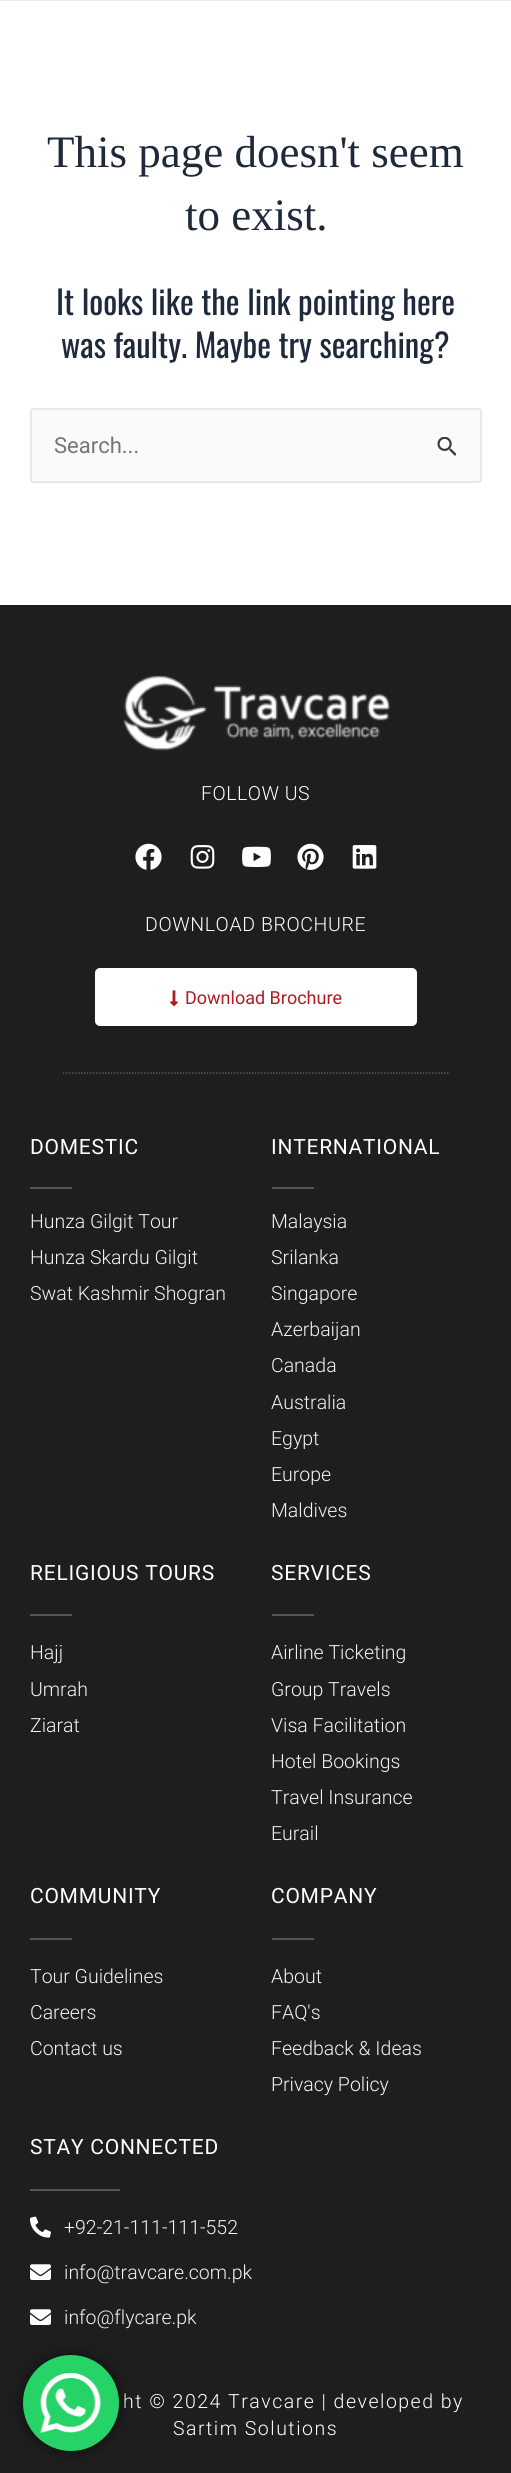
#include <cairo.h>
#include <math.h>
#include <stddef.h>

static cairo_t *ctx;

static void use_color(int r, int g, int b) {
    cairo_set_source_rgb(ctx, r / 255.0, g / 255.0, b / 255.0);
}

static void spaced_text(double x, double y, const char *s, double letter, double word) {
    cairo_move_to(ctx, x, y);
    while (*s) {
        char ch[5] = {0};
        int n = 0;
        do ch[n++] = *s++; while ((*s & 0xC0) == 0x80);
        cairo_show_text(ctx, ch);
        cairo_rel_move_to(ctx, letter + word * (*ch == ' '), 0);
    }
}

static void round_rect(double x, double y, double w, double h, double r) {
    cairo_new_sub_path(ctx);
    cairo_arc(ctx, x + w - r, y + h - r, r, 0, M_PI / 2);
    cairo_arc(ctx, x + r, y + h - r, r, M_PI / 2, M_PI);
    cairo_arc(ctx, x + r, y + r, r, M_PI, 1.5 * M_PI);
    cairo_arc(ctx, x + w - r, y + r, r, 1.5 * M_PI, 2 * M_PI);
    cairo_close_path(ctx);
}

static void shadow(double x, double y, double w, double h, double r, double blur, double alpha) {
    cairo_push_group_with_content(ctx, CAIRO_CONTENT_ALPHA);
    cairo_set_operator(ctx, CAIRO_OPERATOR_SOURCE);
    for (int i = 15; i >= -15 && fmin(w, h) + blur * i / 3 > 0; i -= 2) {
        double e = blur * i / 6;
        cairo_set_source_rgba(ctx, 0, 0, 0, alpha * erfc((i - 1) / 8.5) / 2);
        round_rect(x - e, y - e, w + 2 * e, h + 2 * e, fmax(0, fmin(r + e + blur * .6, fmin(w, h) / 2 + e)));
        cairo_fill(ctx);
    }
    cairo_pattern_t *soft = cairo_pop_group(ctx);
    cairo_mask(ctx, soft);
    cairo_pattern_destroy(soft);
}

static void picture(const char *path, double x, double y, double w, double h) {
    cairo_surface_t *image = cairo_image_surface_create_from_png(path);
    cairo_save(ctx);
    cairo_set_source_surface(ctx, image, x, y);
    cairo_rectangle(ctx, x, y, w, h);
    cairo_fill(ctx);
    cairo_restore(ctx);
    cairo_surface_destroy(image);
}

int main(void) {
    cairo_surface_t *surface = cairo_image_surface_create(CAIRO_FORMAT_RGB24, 511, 2473);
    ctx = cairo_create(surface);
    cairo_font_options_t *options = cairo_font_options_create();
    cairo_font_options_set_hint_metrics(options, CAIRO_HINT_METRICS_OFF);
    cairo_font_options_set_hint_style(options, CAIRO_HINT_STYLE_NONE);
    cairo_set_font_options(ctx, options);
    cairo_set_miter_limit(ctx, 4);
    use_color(255, 255, 255);
    cairo_paint(ctx);
    use_color(234, 234, 234);
    cairo_rectangle(ctx, 0, 0, 511, 1);
    cairo_fill(ctx);
    cairo_select_font_face(ctx, "Liberation Serif", CAIRO_FONT_SLANT_NORMAL, CAIRO_FONT_WEIGHT_NORMAL);
    cairo_set_font_size(ctx, 45);
    use_color(30, 41, 59);
    cairo_move_to(ctx, 47, 167);
    cairo_show_text(ctx, "This page doesn't seem");
    cairo_move_to(ctx, 185, 230);
    cairo_show_text(ctx, "to exist.");
    cairo_select_font_face(ctx, "Oswald", CAIRO_FONT_SLANT_NORMAL, CAIRO_FONT_WEIGHT_NORMAL);
    cairo_set_font_size(ctx, 32.75);
    cairo_move_to(ctx, 56, 315);
    cairo_show_text(ctx, "It looks like the link pointing here");
    cairo_move_to(ctx, 61, 358);
    cairo_show_text(ctx, "was faulty. Maybe try searching?");
    use_color(250, 250, 250);
    round_rect(31, 409, 450, 73, 2);
    cairo_fill_preserve(ctx);
    use_color(226, 232, 240);
    cairo_stroke(ctx);
    cairo_select_font_face(ctx, "Roboto", CAIRO_FONT_SLANT_NORMAL, CAIRO_FONT_WEIGHT_NORMAL);
    cairo_set_font_size(ctx, 22);
    use_color(117, 117, 117);
    cairo_move_to(ctx, 54, 453);
    cairo_show_text(ctx, "Search...");
    picture("img1.png", 437, 437, 19, 19);
    use_color(30, 30, 30);
    cairo_rectangle(ctx, 0, 605, 511, 1868);
    cairo_fill(ctx);
    picture("img2.png", 123, 675, 268, 76);
    cairo_select_font_face(ctx, "Roboto Light", CAIRO_FONT_SLANT_NORMAL, CAIRO_FONT_WEIGHT_NORMAL);
    cairo_set_font_size(ctx, 19.5);
    use_color(255, 255, 255);
    spaced_text(201, 800, "FOLLOW US", 0.5, 0);
    picture("img3.png", 135, 843, 27, 27);
    picture("img4.png", 190, 845, 25, 24);
    picture("img5.png", 242, 846, 29, 21);
    picture("img6.png", 297, 843, 27, 27);
    picture("img7.png", 352, 845, 25, 24);
    spaced_text(145, 931, "DOWNLOAD BROCHURE", 0.6, 0);
    round_rect(95, 968, 322, 58, 5);
    cairo_fill(ctx);
    picture("img8.png", 170, 990, 8, 16);
    cairo_select_font_face(ctx, "Roboto", CAIRO_FONT_SLANT_NORMAL, CAIRO_FONT_WEIGHT_NORMAL);
    cairo_set_font_size(ctx, 18);
    use_color(176, 28, 33);
    cairo_move_to(ctx, 185, 1004);
    cairo_show_text(ctx, "Download Brochure");
    cairo_new_path(ctx);
    cairo_move_to(ctx, 63, 1073);
    cairo_line_to(ctx, 448.5, 1073);
    use_color(88, 88, 88);
    cairo_set_line_width(ctx, 1.5);
    cairo_set_dash(ctx, (double[]){1.5, 1.5}, 2, 0);
    cairo_stroke(ctx);
    cairo_set_font_size(ctx, 21);
    use_color(255, 255, 255);
    spaced_text(30, 1154, "DOMESTIC", 0.75, 0);
    use_color(84, 84, 84);
    cairo_rectangle(ctx, 30, 1187, 42, 2);
    cairo_fill(ctx);
    cairo_select_font_face(ctx, "Roboto Light", CAIRO_FONT_SLANT_NORMAL, CAIRO_FONT_WEIGHT_NORMAL);
    cairo_set_font_size(ctx, 19.5);
    use_color(243, 243, 243);
    cairo_move_to(ctx, 30, 1228);
    cairo_show_text(ctx, "Hunza Gilgit Tour");
    cairo_move_to(ctx, 30, 1264);
    cairo_show_text(ctx, "Hunza Skardu Gilgit");
    cairo_move_to(ctx, 30, 1300);
    cairo_show_text(ctx, "Swat Kashmir Shogran");
    cairo_select_font_face(ctx, "Roboto", CAIRO_FONT_SLANT_NORMAL, CAIRO_FONT_WEIGHT_NORMAL);
    cairo_set_font_size(ctx, 21);
    use_color(255, 255, 255);
    spaced_text(271, 1154, "INTERNATIONAL", 0.75, 0);
    use_color(84, 84, 84);
    cairo_rectangle(ctx, 272, 1187, 42, 2);
    cairo_fill(ctx);
    cairo_select_font_face(ctx, "Roboto Light", CAIRO_FONT_SLANT_NORMAL, CAIRO_FONT_WEIGHT_NORMAL);
    cairo_set_font_size(ctx, 19.5);
    use_color(243, 243, 243);
    cairo_move_to(ctx, 271, 1228);
    cairo_show_text(ctx, "Malaysia");
    cairo_move_to(ctx, 271, 1264);
    cairo_show_text(ctx, "Srilanka");
    cairo_move_to(ctx, 271, 1300);
    cairo_show_text(ctx, "Singapore");
    cairo_move_to(ctx, 271, 1336);
    cairo_show_text(ctx, "Azerbaijan");
    cairo_move_to(ctx, 271, 1372);
    cairo_show_text(ctx, "Canada");
    cairo_move_to(ctx, 271, 1409);
    cairo_show_text(ctx, "Australia");
    cairo_move_to(ctx, 271, 1445);
    cairo_show_text(ctx, "Egypt");
    cairo_move_to(ctx, 271, 1481);
    cairo_show_text(ctx, "Europe");
    cairo_move_to(ctx, 271, 1517);
    cairo_show_text(ctx, "Maldives");
    cairo_select_font_face(ctx, "Roboto", CAIRO_FONT_SLANT_NORMAL, CAIRO_FONT_WEIGHT_NORMAL);
    cairo_set_font_size(ctx, 21);
    use_color(255, 255, 255);
    spaced_text(30, 1580, "RELIGIOUS TOURS", 0.75, 0);
    use_color(84, 84, 84);
    cairo_rectangle(ctx, 30, 1614, 42, 2);
    cairo_fill(ctx);
    cairo_select_font_face(ctx, "Roboto Light", CAIRO_FONT_SLANT_NORMAL, CAIRO_FONT_WEIGHT_NORMAL);
    cairo_set_font_size(ctx, 19.5);
    use_color(243, 243, 243);
    cairo_move_to(ctx, 30, 1659);
    cairo_show_text(ctx, "Hajj");
    cairo_move_to(ctx, 30, 1696);
    cairo_show_text(ctx, "Umrah");
    cairo_move_to(ctx, 30, 1732);
    cairo_show_text(ctx, "Ziarat");
    cairo_select_font_face(ctx, "Roboto", CAIRO_FONT_SLANT_NORMAL, CAIRO_FONT_WEIGHT_NORMAL);
    cairo_set_font_size(ctx, 21);
    use_color(255, 255, 255);
    spaced_text(271, 1580, "SERVICES", 0.75, 0);
    use_color(84, 84, 84);
    cairo_rectangle(ctx, 272, 1614, 42, 2);
    cairo_fill(ctx);
    cairo_select_font_face(ctx, "Roboto Light", CAIRO_FONT_SLANT_NORMAL, CAIRO_FONT_WEIGHT_NORMAL);
    cairo_set_font_size(ctx, 19.5);
    use_color(243, 243, 243);
    cairo_move_to(ctx, 271, 1659);
    cairo_show_text(ctx, "Airline Ticketing");
    cairo_move_to(ctx, 271, 1696);
    cairo_show_text(ctx, "Group Travels");
    cairo_move_to(ctx, 271, 1732);
    cairo_show_text(ctx, "Visa Facilitation");
    cairo_move_to(ctx, 271, 1768);
    cairo_show_text(ctx, "Hotel Bookings");
    cairo_move_to(ctx, 271, 1804);
    cairo_show_text(ctx, "Travel Insurance");
    cairo_move_to(ctx, 271, 1840);
    cairo_show_text(ctx, "Eurail");
    cairo_select_font_face(ctx, "Roboto", CAIRO_FONT_SLANT_NORMAL, CAIRO_FONT_WEIGHT_NORMAL);
    cairo_set_font_size(ctx, 21);
    use_color(255, 255, 255);
    spaced_text(30, 1903, "COMMUNITY", 0.75, 0);
    use_color(84, 84, 84);
    cairo_rectangle(ctx, 30, 1938, 42, 2);
    cairo_fill(ctx);
    cairo_select_font_face(ctx, "Roboto Light", CAIRO_FONT_SLANT_NORMAL, CAIRO_FONT_WEIGHT_NORMAL);
    cairo_set_font_size(ctx, 19.5);
    use_color(243, 243, 243);
    cairo_move_to(ctx, 30, 1983);
    cairo_show_text(ctx, "Tour Guidelines");
    cairo_move_to(ctx, 30, 2019);
    cairo_show_text(ctx, "Careers");
    cairo_move_to(ctx, 30, 2055);
    cairo_show_text(ctx, "Contact us");
    cairo_select_font_face(ctx, "Roboto", CAIRO_FONT_SLANT_NORMAL, CAIRO_FONT_WEIGHT_NORMAL);
    cairo_set_font_size(ctx, 21);
    use_color(255, 255, 255);
    spaced_text(271, 1903, "COMPANY", 0.75, 0);
    use_color(84, 84, 84);
    cairo_rectangle(ctx, 272, 1938, 42, 2);
    cairo_fill(ctx);
    cairo_select_font_face(ctx, "Roboto Light", CAIRO_FONT_SLANT_NORMAL, CAIRO_FONT_WEIGHT_NORMAL);
    cairo_set_font_size(ctx, 19.5);
    use_color(243, 243, 243);
    cairo_move_to(ctx, 271, 1983);
    cairo_show_text(ctx, "About");
    cairo_move_to(ctx, 271, 2019);
    cairo_show_text(ctx, "FAQ's");
    cairo_move_to(ctx, 271, 2055);
    cairo_show_text(ctx, "Feedback & Ideas");
    cairo_move_to(ctx, 271, 2091);
    cairo_show_text(ctx, "Privacy Policy");
    cairo_select_font_face(ctx, "Roboto", CAIRO_FONT_SLANT_NORMAL, CAIRO_FONT_WEIGHT_NORMAL);
    cairo_set_font_size(ctx, 21);
    use_color(255, 255, 255);
    spaced_text(30, 2154, "STAY CONNECTED", 0.75, 0);
    use_color(84, 84, 84);
    cairo_rectangle(ctx, 30, 2189, 90, 2);
    cairo_fill(ctx);
    picture("img9.png", 30, 2216, 21, 22);
    cairo_select_font_face(ctx, "Roboto Light", CAIRO_FONT_SLANT_NORMAL, CAIRO_FONT_WEIGHT_NORMAL);
    cairo_set_font_size(ctx, 19.5);
    use_color(243, 243, 243);
    cairo_move_to(ctx, 64, 2234);
    cairo_show_text(ctx, "+92-21-111-111-552");
    picture("img10.png", 30, 2264, 21, 16);
    cairo_move_to(ctx, 64, 2279);
    cairo_show_text(ctx, "info@travcare.com.pk");
    picture("img10.png", 30, 2309, 21, 16);
    cairo_move_to(ctx, 64, 2324);
    cairo_show_text(ctx, "info@flycare.pk");
    use_color(255, 255, 255);
    spaced_text(123, 2408, "ht © 2024 Travcare | developed by", 1.5, 0);
    spaced_text(173, 2435, "Sartim Solutions", 1.5, 0);
    use_color(0, 0, 0);
    shadow(23, 2355, 96, 96, 48, 8, 0.5);
    use_color(37, 211, 102);
    cairo_arc(ctx, 71, 2403, 48, 0, 2 * M_PI);
    cairo_fill(ctx);
    picture("img11.png", 40, 2373, 61, 60);
    cairo_surface_write_to_png(surface, "result.png");
    cairo_font_options_destroy(options);
    cairo_destroy(ctx);
    cairo_surface_destroy(surface);
    return 0;
}
